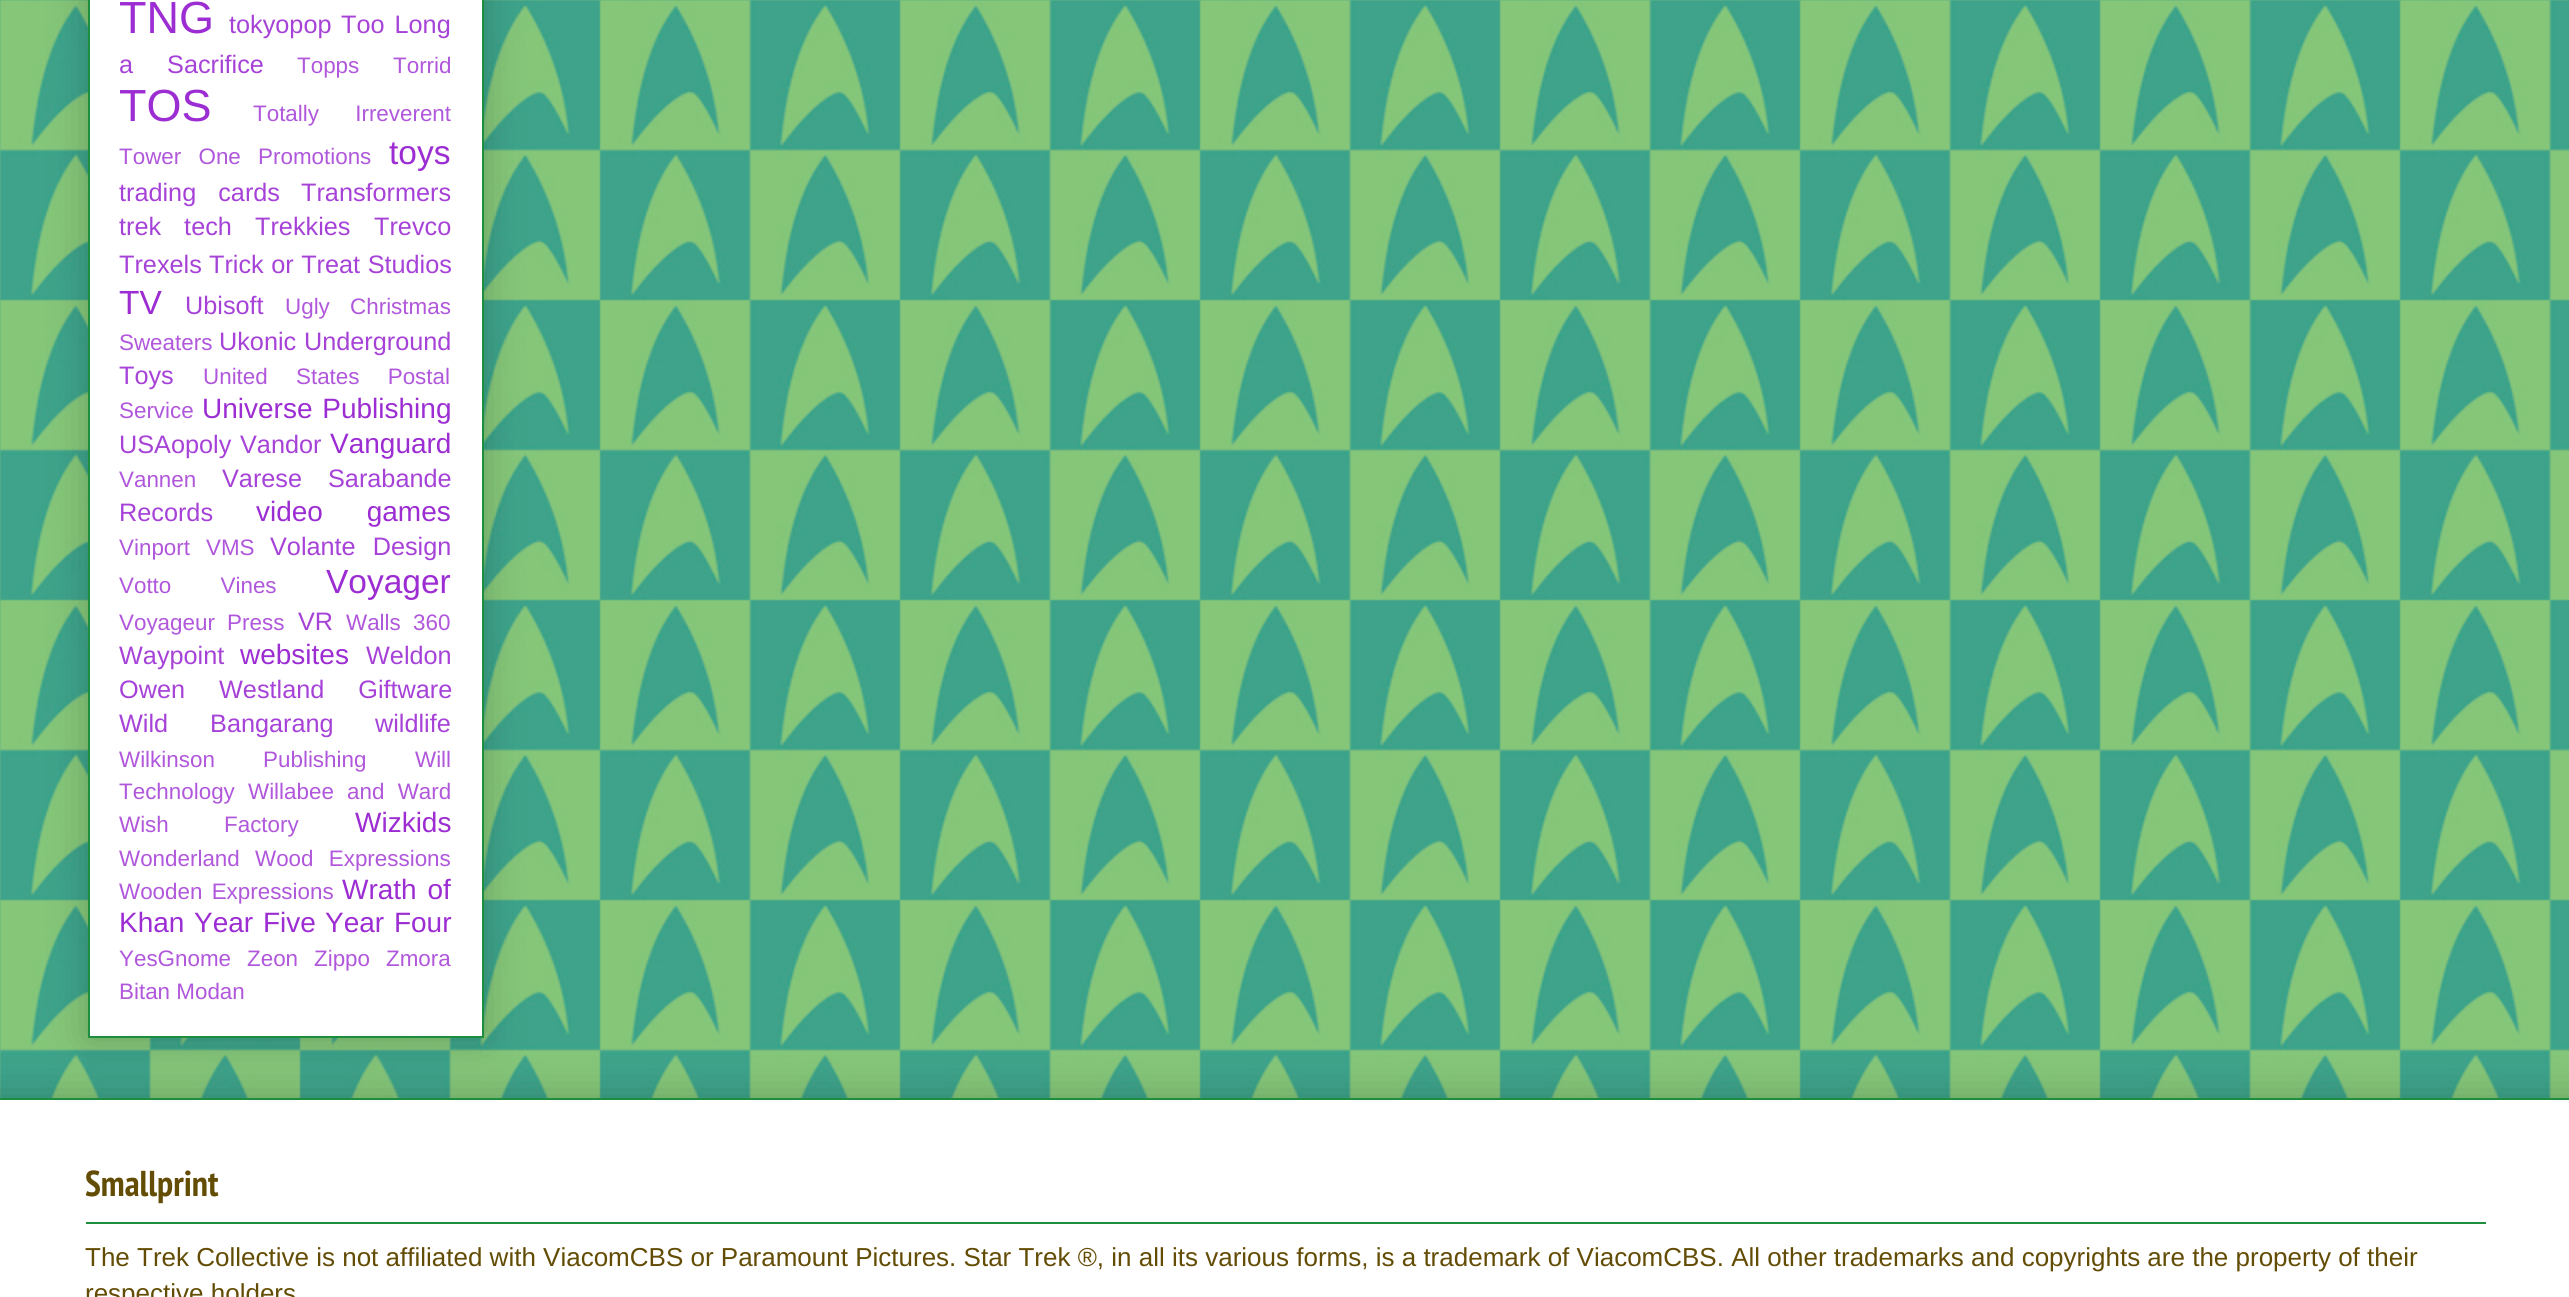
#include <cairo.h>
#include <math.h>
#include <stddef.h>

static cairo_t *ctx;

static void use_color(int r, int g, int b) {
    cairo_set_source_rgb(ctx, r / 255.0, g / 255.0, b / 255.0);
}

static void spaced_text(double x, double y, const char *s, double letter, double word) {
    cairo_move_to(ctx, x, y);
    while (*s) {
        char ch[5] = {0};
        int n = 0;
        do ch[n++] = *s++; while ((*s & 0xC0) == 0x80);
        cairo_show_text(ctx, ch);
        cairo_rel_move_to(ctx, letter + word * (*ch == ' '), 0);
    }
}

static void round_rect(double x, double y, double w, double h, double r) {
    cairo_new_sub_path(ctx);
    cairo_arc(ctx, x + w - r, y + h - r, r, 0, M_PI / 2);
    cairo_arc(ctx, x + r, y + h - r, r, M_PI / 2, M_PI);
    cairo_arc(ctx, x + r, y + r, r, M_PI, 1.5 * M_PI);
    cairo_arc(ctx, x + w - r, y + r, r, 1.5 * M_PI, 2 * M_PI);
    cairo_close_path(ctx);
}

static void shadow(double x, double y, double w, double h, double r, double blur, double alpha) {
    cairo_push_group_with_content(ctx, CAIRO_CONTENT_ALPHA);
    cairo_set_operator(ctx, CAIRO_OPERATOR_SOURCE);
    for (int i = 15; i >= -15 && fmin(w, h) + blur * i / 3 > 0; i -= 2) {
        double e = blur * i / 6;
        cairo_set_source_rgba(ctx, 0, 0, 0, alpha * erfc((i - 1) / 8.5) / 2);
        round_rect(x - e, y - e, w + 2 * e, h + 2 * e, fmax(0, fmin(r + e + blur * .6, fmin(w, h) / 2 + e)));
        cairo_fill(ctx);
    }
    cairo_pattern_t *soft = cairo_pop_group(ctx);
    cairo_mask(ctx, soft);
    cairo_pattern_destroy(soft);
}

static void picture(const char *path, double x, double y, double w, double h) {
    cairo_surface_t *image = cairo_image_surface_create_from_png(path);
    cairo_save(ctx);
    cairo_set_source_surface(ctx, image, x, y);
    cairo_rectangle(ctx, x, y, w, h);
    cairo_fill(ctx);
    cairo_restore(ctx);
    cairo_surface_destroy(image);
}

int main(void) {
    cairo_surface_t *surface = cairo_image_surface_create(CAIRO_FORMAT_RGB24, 2569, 1297);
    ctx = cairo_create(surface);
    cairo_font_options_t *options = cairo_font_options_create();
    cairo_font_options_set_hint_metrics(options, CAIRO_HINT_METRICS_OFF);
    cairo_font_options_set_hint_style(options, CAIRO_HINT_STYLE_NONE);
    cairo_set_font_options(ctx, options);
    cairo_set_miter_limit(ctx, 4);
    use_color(255, 255, 255);
    cairo_paint(ctx);
    picture("img1.png", 0, 0, 2569, 1098);
    use_color(0, 0, 0);
    shadow(88, -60, 396, 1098, 0, 20, 0.2);
    use_color(255, 255, 255);
    cairo_rectangle(ctx, 89, -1, 394, 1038);
    cairo_fill_preserve(ctx);
    use_color(28, 142, 61);
    cairo_stroke(ctx);
    cairo_select_font_face(ctx, "Liberation Sans", CAIRO_FONT_SLANT_NORMAL, CAIRO_FONT_WEIGHT_NORMAL);
    cairo_set_font_size(ctx, 45);
    use_color(156, 45, 210);
    cairo_move_to(ctx, 119, 33);
    cairo_show_text(ctx, "TNG");
    cairo_set_font_size(ctx, 25.25);
    use_color(166, 66, 215);
    cairo_move_to(ctx, 229, 33);
    cairo_show_text(ctx, "tokyopop");
    spaced_text(341, 33, "Too Long", 0, 3);
    spaced_text(119, 73, "a Sacrifice", 0, 27);
    cairo_set_font_size(ctx, 22.4);
    use_color(176, 87, 219);
    cairo_move_to(ctx, 297, 73);
    cairo_show_text(ctx, "Topps");
    cairo_move_to(ctx, 393, 73);
    cairo_show_text(ctx, "Torrid");
    cairo_set_font_size(ctx, 45);
    use_color(156, 45, 210);
    cairo_move_to(ctx, 119, 121);
    cairo_show_text(ctx, "TOS");
    cairo_set_font_size(ctx, 22.4);
    use_color(176, 87, 219);
    spaced_text(253, 121, "Totally Irreverent", 0, 30);
    spaced_text(119, 164, "Tower One Promotions", 0, 11);
    cairo_set_font_size(ctx, 33.5);
    use_color(156, 45, 210);
    cairo_move_to(ctx, 389, 164);
    cairo_show_text(ctx, "toys");
    cairo_set_font_size(ctx, 25.25);
    use_color(166, 66, 215);
    spaced_text(119, 201, "trading cards", 0, 15);
    cairo_move_to(ctx, 301, 201);
    cairo_show_text(ctx, "Transformers");
    spaced_text(119, 235, "trek tech", 0, 16);
    cairo_move_to(ctx, 255, 235);
    cairo_show_text(ctx, "Trekkies");
    cairo_move_to(ctx, 374, 235);
    cairo_show_text(ctx, "Trevco");
    cairo_move_to(ctx, 119, 273);
    cairo_show_text(ctx, "Trexels");
    spaced_text(209, 273, "Trick or Treat Studios", 0, 0.5);
    cairo_set_font_size(ctx, 33.5);
    use_color(156, 45, 210);
    cairo_move_to(ctx, 119, 314);
    cairo_show_text(ctx, "TV");
    cairo_set_font_size(ctx, 25.25);
    use_color(166, 66, 215);
    cairo_move_to(ctx, 185, 314);
    cairo_show_text(ctx, "Ubisoft");
    cairo_set_font_size(ctx, 22.4);
    use_color(176, 87, 219);
    spaced_text(285, 314, "Ugly Christmas", 0, 14);
    cairo_move_to(ctx, 119, 350);
    cairo_show_text(ctx, "Sweaters");
    cairo_set_font_size(ctx, 25.25);
    use_color(166, 66, 215);
    cairo_move_to(ctx, 219, 350);
    cairo_show_text(ctx, "Ukonic");
    cairo_move_to(ctx, 304, 350);
    cairo_show_text(ctx, "Underground");
    cairo_move_to(ctx, 119, 384);
    cairo_show_text(ctx, "Toys");
    cairo_set_font_size(ctx, 22.4);
    use_color(176, 87, 219);
    spaced_text(203, 384, "United States Postal", 0, 22);
    cairo_move_to(ctx, 119, 418);
    cairo_show_text(ctx, "Service");
    cairo_set_font_size(ctx, 28);
    use_color(156, 45, 210);
    spaced_text(202, 418, "Universe Publishing", 0, 2);
    cairo_set_font_size(ctx, 25.25);
    use_color(166, 66, 215);
    cairo_move_to(ctx, 119, 453);
    cairo_show_text(ctx, "USAopoly");
    cairo_move_to(ctx, 240, 453);
    cairo_show_text(ctx, "Vandor");
    cairo_set_font_size(ctx, 28);
    use_color(156, 45, 210);
    cairo_move_to(ctx, 330, 453);
    cairo_show_text(ctx, "Vanguard");
    cairo_set_font_size(ctx, 22.4);
    use_color(176, 87, 219);
    cairo_move_to(ctx, 119, 487);
    cairo_show_text(ctx, "Vannen");
    cairo_set_font_size(ctx, 25.25);
    use_color(166, 66, 215);
    spaced_text(222, 487, "Varese Sarabande", 0, 19);
    cairo_move_to(ctx, 119, 521);
    cairo_show_text(ctx, "Records");
    cairo_set_font_size(ctx, 28);
    use_color(156, 45, 210);
    spaced_text(256, 521, "video games", 0, 36);
    cairo_set_font_size(ctx, 22.4);
    use_color(176, 87, 219);
    cairo_move_to(ctx, 119, 555);
    cairo_show_text(ctx, "Vinport");
    cairo_move_to(ctx, 206, 555);
    cairo_show_text(ctx, "VMS");
    cairo_set_font_size(ctx, 25.25);
    use_color(166, 66, 215);
    spaced_text(270, 555, "Volante Design", 0, 10);
    cairo_set_font_size(ctx, 22.4);
    use_color(176, 87, 219);
    spaced_text(119, 593, "Votto Vines", 0, 43);
    cairo_set_font_size(ctx, 33.5);
    use_color(156, 45, 210);
    cairo_move_to(ctx, 326, 593);
    cairo_show_text(ctx, "Voyager");
    cairo_set_font_size(ctx, 22.4);
    use_color(176, 87, 219);
    spaced_text(119, 630, "Voyageur Press", 0, 6);
    cairo_set_font_size(ctx, 25.25);
    use_color(166, 66, 215);
    cairo_move_to(ctx, 298, 630);
    cairo_show_text(ctx, "VR");
    cairo_set_font_size(ctx, 22.4);
    use_color(176, 87, 219);
    spaced_text(346, 630, "Walls 360", 0, 6);
    cairo_set_font_size(ctx, 25.25);
    use_color(166, 66, 215);
    cairo_move_to(ctx, 119, 664);
    cairo_show_text(ctx, "Waypoint");
    cairo_set_font_size(ctx, 28);
    use_color(156, 45, 210);
    cairo_move_to(ctx, 240, 664);
    cairo_show_text(ctx, "websites");
    cairo_set_font_size(ctx, 25.25);
    use_color(166, 66, 215);
    cairo_move_to(ctx, 366, 664);
    cairo_show_text(ctx, "Weldon");
    cairo_move_to(ctx, 119, 698);
    cairo_show_text(ctx, "Owen");
    spaced_text(219, 698, "Westland Giftware", 0, 27);
    spaced_text(119, 732, "Wild Bangarang", 0, 35);
    cairo_move_to(ctx, 375, 732);
    cairo_show_text(ctx, "wildlife");
    cairo_set_font_size(ctx, 22.4);
    use_color(176, 87, 219);
    spaced_text(119, 767, "Wilkinson Publishing", 0, 42);
    cairo_move_to(ctx, 415, 767);
    cairo_show_text(ctx, "Will");
    cairo_move_to(ctx, 119, 799);
    cairo_show_text(ctx, "Technology");
    spaced_text(248, 799, "Willabee and Ward", 0, 7);
    spaced_text(119, 832, "Wish Factory", 0, 49);
    cairo_set_font_size(ctx, 28);
    use_color(156, 45, 210);
    cairo_move_to(ctx, 355, 832);
    cairo_show_text(ctx, "Wizkids");
    cairo_set_font_size(ctx, 22.4);
    use_color(176, 87, 219);
    cairo_move_to(ctx, 119, 866);
    cairo_show_text(ctx, "Wonderland");
    spaced_text(255, 866, "Wood Expressions", 0, 9);
    spaced_text(119, 899, "Wooden Expressions", 0, 3);
    cairo_set_font_size(ctx, 28);
    use_color(156, 45, 210);
    spaced_text(342, 899, "Wrath of", 0, 3);
    cairo_move_to(ctx, 119, 932);
    cairo_show_text(ctx, "Khan");
    spaced_text(194, 932, "Year Five", 0, 2);
    spaced_text(325, 932, "Year Four", 0, 2);
    cairo_set_font_size(ctx, 22.4);
    use_color(176, 87, 219);
    cairo_move_to(ctx, 119, 966);
    cairo_show_text(ctx, "YesGnome");
    cairo_move_to(ctx, 247, 966);
    cairo_show_text(ctx, "Zeon");
    cairo_move_to(ctx, 314, 966);
    cairo_show_text(ctx, "Zippo");
    cairo_move_to(ctx, 386, 966);
    cairo_show_text(ctx, "Zmora");
    cairo_move_to(ctx, 119, 999);
    cairo_show_text(ctx, "Bitan Modan");
    use_color(0, 0, 0);
    shadow(-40, 1098, 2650, 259, 0, 20, 0.2);
    use_color(255, 255, 255);
    cairo_rectangle(ctx, 0, 1100, 2569, 197);
    cairo_fill(ctx);
    use_color(28, 142, 61);
    cairo_rectangle(ctx, 0, 1098, 2569, 2);
    cairo_fill(ctx);
    cairo_select_font_face(ctx, "PT Sans Narrow", CAIRO_FONT_SLANT_NORMAL, CAIRO_FONT_WEIGHT_BOLD);
    cairo_set_font_size(ctx, 36);
    use_color(99, 76, 4);
    cairo_move_to(ctx, 85, 1196);
    cairo_show_text(ctx, "Smallprint");
    use_color(28, 142, 61);
    cairo_rectangle(ctx, 86, 1222, 2400, 2);
    cairo_fill(ctx);
    cairo_select_font_face(ctx, "Liberation Sans", CAIRO_FONT_SLANT_NORMAL, CAIRO_FONT_WEIGHT_NORMAL);
    cairo_set_font_size(ctx, 26);
    use_color(99, 76, 4);
    cairo_move_to(ctx, 85, 1266);
    cairo_show_text(ctx, "The Trek Collective is not affiliated with ViacomCBS or Paramount Pictures. Star Trek ®, in all its various forms, is a trademark of ViacomCBS. All other trademarks and copyrights are the property of their");
    cairo_move_to(ctx, 85, 1302);
    cairo_show_text(ctx, "respective holders");
    cairo_surface_write_to_png(surface, "result.png");
    cairo_font_options_destroy(options);
    cairo_destroy(ctx);
    cairo_surface_destroy(surface);
    return 0;
}
